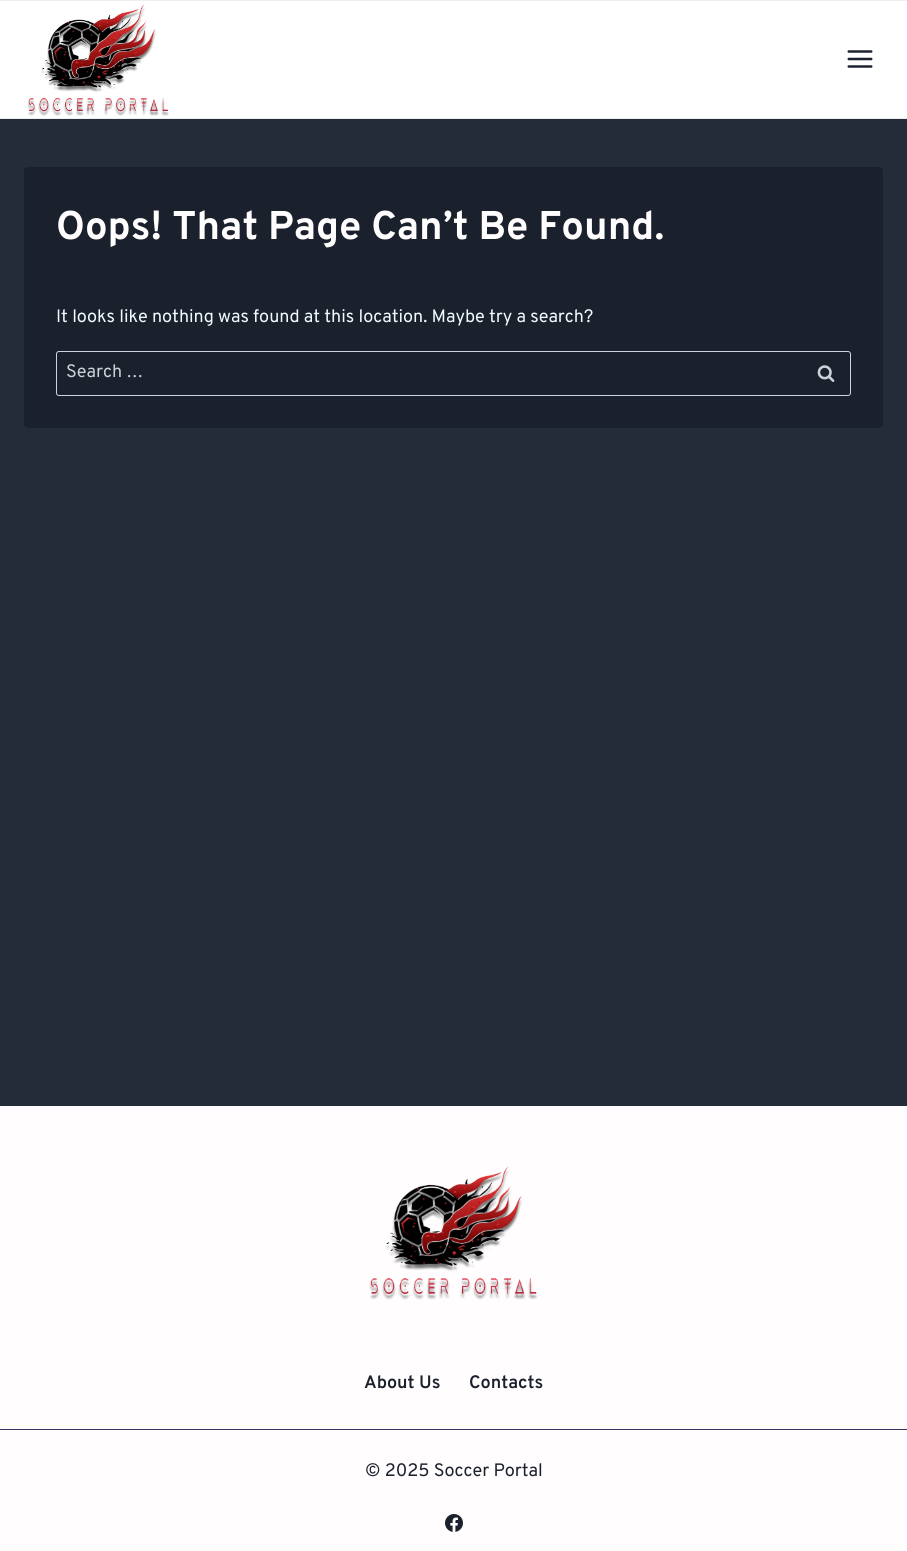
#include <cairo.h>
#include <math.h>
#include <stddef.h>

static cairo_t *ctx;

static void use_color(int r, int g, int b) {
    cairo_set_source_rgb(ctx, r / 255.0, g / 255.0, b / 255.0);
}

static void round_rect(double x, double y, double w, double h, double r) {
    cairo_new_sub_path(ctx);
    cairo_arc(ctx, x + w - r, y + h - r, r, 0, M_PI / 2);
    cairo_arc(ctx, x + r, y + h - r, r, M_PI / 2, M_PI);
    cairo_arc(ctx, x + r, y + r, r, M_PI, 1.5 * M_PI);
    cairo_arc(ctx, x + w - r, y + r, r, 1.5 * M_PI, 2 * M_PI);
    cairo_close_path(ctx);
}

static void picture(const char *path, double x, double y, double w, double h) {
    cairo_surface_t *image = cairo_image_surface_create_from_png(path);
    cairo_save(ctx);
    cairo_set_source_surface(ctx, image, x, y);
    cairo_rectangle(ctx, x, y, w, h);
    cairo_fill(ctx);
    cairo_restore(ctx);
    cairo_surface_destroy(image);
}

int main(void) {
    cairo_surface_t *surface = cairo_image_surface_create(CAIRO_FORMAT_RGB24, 907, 1551);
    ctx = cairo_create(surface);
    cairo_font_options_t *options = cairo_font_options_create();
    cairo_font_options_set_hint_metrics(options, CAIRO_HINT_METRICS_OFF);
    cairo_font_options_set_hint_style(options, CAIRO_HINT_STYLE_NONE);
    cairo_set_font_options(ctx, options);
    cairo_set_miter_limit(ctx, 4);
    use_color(37, 44, 57);
    cairo_paint(ctx);
    use_color(255, 255, 255);
    cairo_rectangle(ctx, 0, 1, 907, 117);
    cairo_fill(ctx);
    use_color(238, 238, 238);
    cairo_rectangle(ctx, 0, 0, 907, 1);
    cairo_fill(ctx);
    cairo_rectangle(ctx, 0, 118, 907, 1);
    cairo_fill(ctx);
    picture("img1.png", 27, 4, 142, 112);
    picture("img2.png", 847, 50, 26, 18);
    use_color(26, 32, 44);
    round_rect(24, 167, 859, 261, 4);
    cairo_fill(ctx);
    cairo_select_font_face(ctx, "Overpass", CAIRO_FONT_SLANT_NORMAL, CAIRO_FONT_WEIGHT_BOLD);
    cairo_set_font_size(ctx, 40);
    use_color(255, 253, 253);
    cairo_move_to(ctx, 56, 239);
    cairo_show_text(ctx, "Oops! That Page Can’t Be Found.");
    cairo_select_font_face(ctx, "Overpass", CAIRO_FONT_SLANT_NORMAL, CAIRO_FONT_WEIGHT_NORMAL);
    cairo_set_font_size(ctx, 18);
    use_color(240, 250, 255);
    cairo_move_to(ctx, 56, 322);
    cairo_show_text(ctx, "It looks like nothing was found at this location. Maybe try a search?");
    round_rect(56.5, 351.5, 794, 44, 2.5);
    use_color(203, 213, 224);
    cairo_set_line_width(ctx, 1);
    cairo_stroke(ctx);
    use_color(203, 210, 217);
    cairo_move_to(ctx, 66, 377);
    cairo_show_text(ctx, "Search …");
    picture("img3.png", 817, 365, 18, 17);
    use_color(255, 253, 253);
    cairo_rectangle(ctx, 0, 1106, 907, 445);
    cairo_fill(ctx);
    picture("img4.png", 369, 1166, 169, 134);
    cairo_select_font_face(ctx, "Overpass SemiBold", CAIRO_FONT_SLANT_NORMAL, CAIRO_FONT_WEIGHT_NORMAL);
    use_color(26, 32, 44);
    cairo_move_to(ctx, 364, 1388);
    cairo_show_text(ctx, "About Us");
    cairo_move_to(ctx, 469, 1388);
    cairo_show_text(ctx, "Contacts");
    use_color(62, 48, 99);
    cairo_rectangle(ctx, 0, 1429, 907, 1);
    cairo_fill(ctx);
    cairo_select_font_face(ctx, "Overpass", CAIRO_FONT_SLANT_NORMAL, CAIRO_FONT_WEIGHT_NORMAL);
    use_color(26, 32, 44);
    cairo_move_to(ctx, 365, 1476);
    cairo_show_text(ctx, "© 2025 Soccer Portal");
    picture("img5.png", 445, 1514, 18, 18);
    cairo_surface_write_to_png(surface, "result.png");
    cairo_font_options_destroy(options);
    cairo_destroy(ctx);
    cairo_surface_destroy(surface);
    return 0;
}
